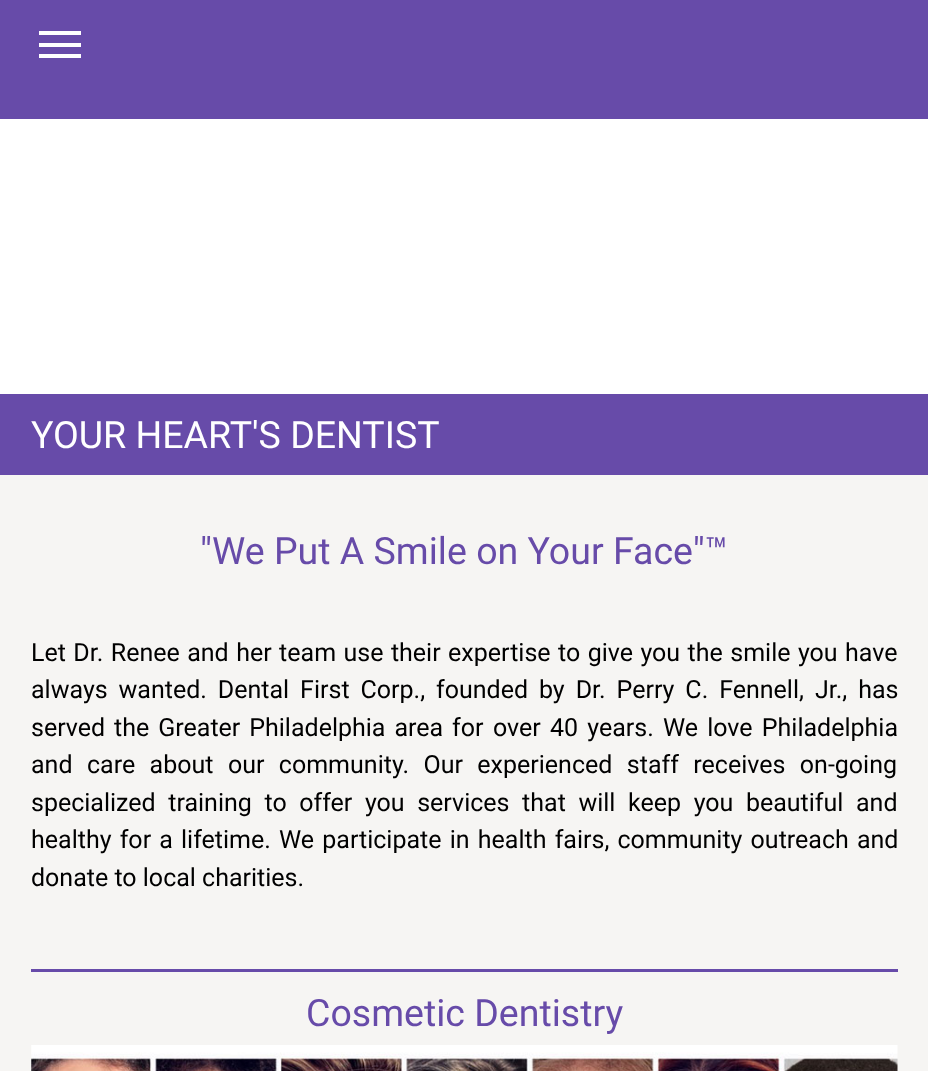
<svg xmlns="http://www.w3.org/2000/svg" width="928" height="1071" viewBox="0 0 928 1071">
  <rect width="100%" height="100%" fill="#ffffff"/>
  <rect x="0" y="0" width="928" height="119" fill="#674ba9"/>
  <rect x="39" y="43" width="42" height="4" fill="#ffffff"/>
  <rect x="39" y="31" width="42" height="4" fill="#ffffff"/>
  <rect x="39" y="54" width="42" height="4" fill="#ffffff"/>
  <rect x="0" y="475" width="928" height="596" fill="#f6f5f3"/>
  <rect x="0" y="394" width="928" height="81" fill="#674ba9"/>
  <text x="31" y="448" font-family="Roboto" font-size="37.5" fill="#ffffff">YOUR HEART'S DENTIST</text>
  <text x="200" y="564" font-family="Roboto" font-size="37.5" fill="#674ba9">"We Put A Smile on Your Face"™</text>
  <text x="31" y="661" word-spacing="1.25" font-family="Roboto" font-size="25" fill="#000000">Let Dr. Renee and her team use their expertise to give you the smile you have</text>
  <text x="31" y="698" word-spacing="4.75" font-family="Roboto" font-size="25" fill="#000000">always wanted. Dental First Corp., founded by Dr. Perry C. Fennell, Jr., has</text>
  <text x="31" y="736" word-spacing="2.75" font-family="Roboto" font-size="25" fill="#000000">served the Greater Philadelphia area for</text>
  <text x="493" y="736" word-spacing="3" font-family="Roboto" font-size="25" fill="#000000">over 40 years. We love Philadelphia</text>
  <text x="31" y="773" word-spacing="8.25" font-family="Roboto" font-size="25" fill="#000000">and care about our community. Our experienced staff receives on-going</text>
  <text x="31" y="811" word-spacing="6.4" font-family="Roboto" font-size="25" fill="#000000">specialized training to offer you services that will keep you beautiful and</text>
  <text x="31" y="848" word-spacing="2" font-family="Roboto" font-size="25" fill="#000000">healthy for a</text>
  <text x="181" y="848" word-spacing="2" font-family="Roboto" font-size="25" fill="#000000">lifetime. We participate in health fairs, community outreach and</text>
  <text x="31" y="886" font-family="Roboto" font-size="25" fill="#000000">donate to local charities.</text>
  <rect x="31" y="969" width="867" height="3" fill="#674ba9"/>
  <text x="306" y="1026" font-family="Roboto" font-size="37.5" fill="#674ba9">Cosmetic Dentistry</text>
  <image x="31" y="1045" width="867" height="26" href="img1.png"/>
</svg>
